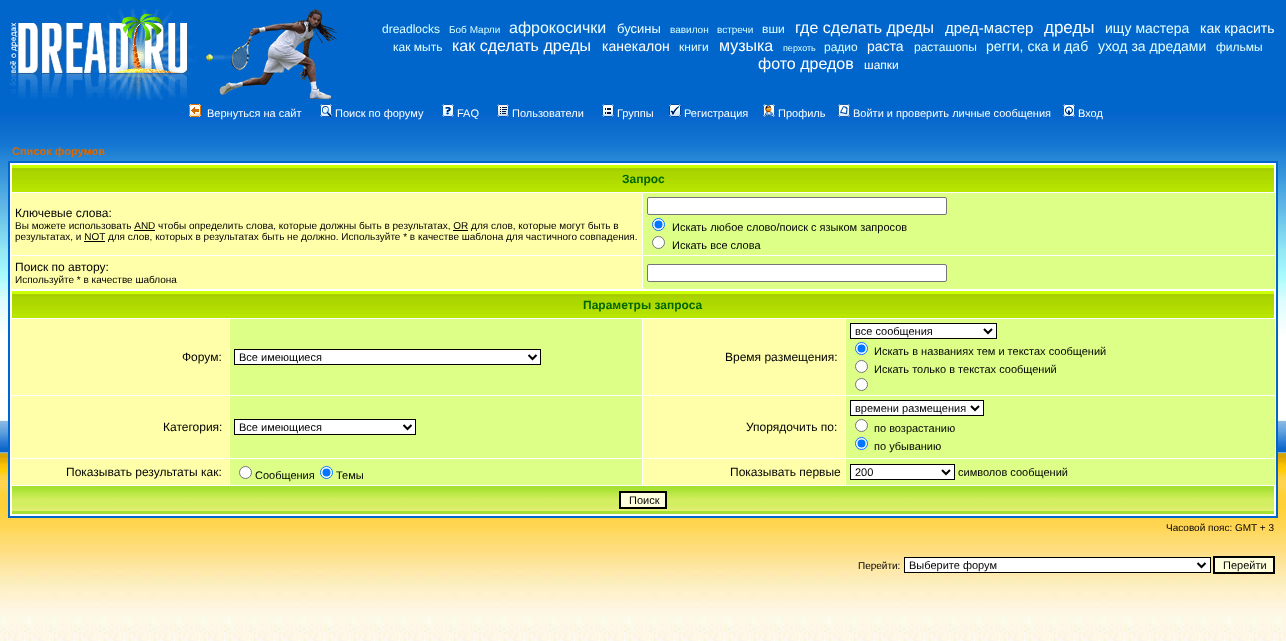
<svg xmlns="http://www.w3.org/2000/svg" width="1286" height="641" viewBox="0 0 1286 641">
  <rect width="100%" height="100%" fill="#0066cc"/>
  <image x="0" y="113" width="1286" height="528" href="img1.png"/>
  <image x="9" y="9" width="329" height="91" href="img2.png"/>
  <text x="382" y="33" font-family="Liberation Sans" font-size="12" fill="#d6ffff">dreadlocks</text>
  <text x="449" y="33" font-family="Liberation Sans" font-size="10" fill="#d6ffff">Боб Марли</text>
  <text x="509" y="33" font-family="Liberation Sans" font-size="16" fill="#ebffff">афрокосички</text>
  <text x="617" y="33" font-family="Liberation Sans" font-size="13" fill="#ebffff">бусины</text>
  <text x="670" y="33" font-family="Liberation Sans" font-size="10" fill="#d6ffff">вавилон</text>
  <text x="717" y="33" font-family="Liberation Sans" font-size="10" fill="#d6ffff">встречи</text>
  <text x="762" y="33" font-family="Liberation Sans" font-size="12" fill="#e0ffff">вши</text>
  <text x="795" y="33" font-family="Liberation Sans" font-size="16" fill="#ffffff">где сделать дреды</text>
  <text x="945" y="33" font-family="Liberation Sans" font-size="15" fill="#f5ffff">дред-мастер</text>
  <text x="1044" y="33" font-family="Liberation Sans" font-size="17" fill="#ffffff">дреды</text>
  <text x="1105" y="33" font-family="Liberation Sans" font-size="14" fill="#e0ffff">ищу мастера</text>
  <text x="1200" y="33" font-family="Liberation Sans" font-size="14" fill="#f5ffff">как красить</text>
  <text x="393" y="51" font-family="Liberation Sans" font-size="12" fill="#e0ffff">как мыть</text>
  <text x="452" y="51" font-family="Liberation Sans" font-size="16" fill="#ffffff">как сделать дреды</text>
  <text x="602" y="51" font-family="Liberation Sans" font-size="14" fill="#ffffff">канекалон</text>
  <text x="679" y="51" font-family="Liberation Sans" font-size="12" fill="#e0ffff">книги</text>
  <text x="719" y="51" font-family="Liberation Sans" font-size="16" fill="#ffffff">музыка</text>
  <text x="783" y="51" font-family="Liberation Sans" font-size="9" fill="#d6ffff">перхоть</text>
  <text x="824" y="51" font-family="Liberation Sans" font-size="12" fill="#d6ffff">радио</text>
  <text x="867" y="51" font-family="Liberation Sans" font-size="14" fill="#ffffff">раста</text>
  <text x="914" y="51" font-family="Liberation Sans" font-size="12" fill="#e0ffff">расташопы</text>
  <text x="986" y="51" font-family="Liberation Sans" font-size="14" fill="#e0ffff">регги, ска и даб</text>
  <text x="1098" y="51" font-family="Liberation Sans" font-size="14" fill="#e0ffff">уход за дредами</text>
  <text x="1216" y="51" font-family="Liberation Sans" font-size="12" fill="#e0ffff">фильмы</text>
  <text x="758" y="69" font-family="Liberation Sans" font-size="16" fill="#ffffff">фото дредов</text>
  <text x="864" y="69" font-family="Liberation Sans" font-size="12" fill="#ffffff">шапки</text>
  <image x="189" y="104" width="12" height="13" href="img3.png"/>
  <text x="207" y="117" font-family="Liberation Sans" font-size="11" fill="#ffffff">Вернуться на сайт</text>
  <image x="320" y="104" width="12" height="13" href="img4.png"/>
  <text x="335" y="117" font-family="Liberation Sans" font-size="11" fill="#ffffff">Поиск по форуму</text>
  <image x="442" y="104" width="12" height="13" href="img5.png"/>
  <text x="457" y="117" font-family="Liberation Sans" font-size="11" fill="#ffffff">FAQ</text>
  <image x="497" y="104" width="12" height="13" href="img6.png"/>
  <text x="512" y="117" font-family="Liberation Sans" font-size="11" fill="#ffffff">Пользователи</text>
  <image x="602" y="104" width="12" height="13" href="img7.png"/>
  <text x="617" y="117" font-family="Liberation Sans" font-size="11" fill="#ffffff">Группы</text>
  <image x="669" y="104" width="12" height="13" href="img8.png"/>
  <text x="684" y="117" font-family="Liberation Sans" font-size="11" fill="#ffffff">Регистрация</text>
  <image x="763" y="104" width="12" height="13" href="img9.png"/>
  <text x="778" y="117" font-family="Liberation Sans" font-size="11" fill="#ffffff">Профиль</text>
  <image x="838" y="104" width="12" height="13" href="img10.png"/>
  <text x="853" y="117" font-family="Liberation Sans" font-size="11" fill="#ffffff">Войти и проверить личные сообщения</text>
  <image x="1063" y="104" width="12" height="13" href="img11.png"/>
  <text x="1078" y="117" font-family="Liberation Sans" font-size="11" fill="#ffffff">Вход</text>
  <text x="12" y="155" font-family="Liberation Sans" font-size="11" font-weight="bold" fill="#dd6900">Список форумов</text>
  <rect x="9" y="162" width="1268" height="355" fill="#ffffff" stroke="#0066cc" stroke-width="2"/>
  <image x="12" y="165" width="1262" height="27" href="img12.png"/>
  <text x="622" y="183" font-family="Liberation Sans" font-size="12" font-weight="bold" fill="#006600">Запрос</text>
  <rect x="11" y="193" width="631" height="62" fill="#ffffaa"/>
  <text x="15" y="217" font-family="Liberation Sans" font-size="12" fill="#000000">Ключевые слова:</text>
  <text x="15" y="229" font-family="Liberation Sans" font-size="10" fill="#000000">Вы можете использовать AND чтобы определить слова, которые должны быть в результатах, OR для слов, которые могут быть в</text>
  <rect x="134" y="230" width="21" height="1" fill="#000000"/>
  <rect x="453" y="230" width="15" height="1" fill="#000000"/>
  <text x="15" y="240" font-family="Liberation Sans" font-size="10" fill="#000000">результатах, и NOT для слов, которых в результатах быть не должно. Используйте * в качестве шаблона для частичного совпадения.</text>
  <rect x="84" y="241" width="21" height="1" fill="#000000"/>
  <rect x="643" y="193" width="632" height="62" fill="#ddff88"/>
  <rect x="647.5" y="197.5" width="299" height="17" rx="1.5" fill="#ffffff" stroke="#767676"/>
  <circle cx="658.5" cy="224.5" r="6" fill="#ffffff" stroke="#0075ff"/>
  <circle cx="658.5" cy="224.5" r="4" fill="#0075ff"/>
  <text x="672" y="231" font-family="Liberation Sans" font-size="11" fill="#000000">Искать любое слово/поиск с языком запросов</text>
  <circle cx="658.5" cy="242.5" r="6" fill="#ffffff" stroke="#767676"/>
  <text x="672" y="249" font-family="Liberation Sans" font-size="11" fill="#000000">Искать все слова</text>
  <rect x="11" y="256" width="631" height="33" fill="#ffffaa"/>
  <text x="15" y="271" font-family="Liberation Sans" font-size="12" fill="#000000">Поиск по автору:</text>
  <text x="15" y="283" font-family="Liberation Sans" font-size="10" fill="#000000">Используйте * в качестве шаблона</text>
  <rect x="643" y="256" width="632" height="33" fill="#ddff88"/>
  <rect x="647.5" y="264.5" width="299" height="17" rx="1.5" fill="#ffffff" stroke="#767676"/>
  <image x="12" y="291" width="1262" height="27" href="img12.png"/>
  <text x="583" y="309" font-family="Liberation Sans" font-size="12" font-weight="bold" fill="#006600">Параметры запроса</text>
  <rect x="11" y="319" width="218" height="76" fill="#ffffaa"/>
  <text x="182" y="361" font-family="Liberation Sans" font-size="12" fill="#000000">Форум:</text>
  <rect x="230" y="319" width="412" height="76" fill="#ddff88"/>
  <rect x="234.5" y="349.5" width="306" height="15" fill="#ffffff" stroke="#000000"/>
  <path d="M528.5 355L532.5 359L536.5 355" fill="none" stroke="#000000" stroke-width="2"/>
  <text x="239" y="361" font-family="Liberation Sans" font-size="11" fill="#000000">Все имеющиеся</text>
  <rect x="643" y="319" width="202" height="76" fill="#ffffaa"/>
  <text x="725" y="361" font-family="Liberation Sans" font-size="12" fill="#000000">Время размещения:</text>
  <rect x="846" y="319" width="429" height="76" fill="#ddff88"/>
  <rect x="850.5" y="323.5" width="146" height="15" fill="#ffffff" stroke="#000000"/>
  <path d="M984 329L988 333L992 329" fill="none" stroke="#000000" stroke-width="2"/>
  <text x="855" y="335" font-family="Liberation Sans" font-size="11" fill="#000000">все сообщения</text>
  <circle cx="861.5" cy="348.5" r="6" fill="#ffffff" stroke="#0075ff"/>
  <circle cx="861.5" cy="348.5" r="4" fill="#0075ff"/>
  <text x="874" y="355" font-family="Liberation Sans" font-size="11" fill="#000000">Искать в названиях тем и текстах сообщений</text>
  <circle cx="861.5" cy="366.5" r="6" fill="#ffffff" stroke="#767676"/>
  <text x="874" y="373" font-family="Liberation Sans" font-size="11" fill="#000000">Искать только в текстах сообщений</text>
  <circle cx="861.5" cy="384.5" r="6" fill="#ffffff" stroke="#767676"/>
  <rect x="11" y="396" width="218" height="62" fill="#ffffaa"/>
  <text x="163" y="431" font-family="Liberation Sans" font-size="12" fill="#000000">Категория:</text>
  <rect x="230" y="396" width="412" height="62" fill="#ddff88"/>
  <rect x="234.5" y="419.5" width="181" height="15" fill="#ffffff" stroke="#000000"/>
  <path d="M403.5 425L407.5 429L411.5 425" fill="none" stroke="#000000" stroke-width="2"/>
  <text x="239" y="431" font-family="Liberation Sans" font-size="11" fill="#000000">Все имеющиеся</text>
  <rect x="643" y="396" width="202" height="62" fill="#ffffaa"/>
  <text x="746" y="431" font-family="Liberation Sans" font-size="12" fill="#000000">Упорядочить по:</text>
  <rect x="846" y="396" width="429" height="62" fill="#ddff88"/>
  <rect x="850.5" y="400.5" width="133" height="15" fill="#ffffff" stroke="#000000"/>
  <path d="M971 406L975 410L979 406" fill="none" stroke="#000000" stroke-width="2"/>
  <text x="855" y="412" font-family="Liberation Sans" font-size="11" fill="#000000">времени размещения</text>
  <circle cx="861.5" cy="425.5" r="6" fill="#ffffff" stroke="#767676"/>
  <text x="874" y="432" font-family="Liberation Sans" font-size="11" fill="#000000">по возрастанию</text>
  <circle cx="861.5" cy="443.5" r="6" fill="#ffffff" stroke="#0075ff"/>
  <circle cx="861.5" cy="443.5" r="4" fill="#0075ff"/>
  <text x="874" y="450" font-family="Liberation Sans" font-size="11" fill="#000000">по убыванию</text>
  <rect x="11" y="459" width="218" height="26" fill="#ffffaa"/>
  <text x="66" y="476" font-family="Liberation Sans" font-size="12" fill="#000000">Показывать результаты как:</text>
  <rect x="230" y="459" width="412" height="26" fill="#ddff88"/>
  <circle cx="245.5" cy="472.5" r="6" fill="#ffffff" stroke="#767676"/>
  <text x="255" y="479" font-family="Liberation Sans" font-size="11" fill="#000000">Сообщения</text>
  <circle cx="326.5" cy="472.5" r="6" fill="#ffffff" stroke="#0075ff"/>
  <circle cx="326.5" cy="472.5" r="4" fill="#0075ff"/>
  <text x="336" y="479" font-family="Liberation Sans" font-size="11" fill="#000000">Темы</text>
  <rect x="643" y="459" width="202" height="26" fill="#ffffaa"/>
  <text x="730" y="476" font-family="Liberation Sans" font-size="12" fill="#000000">Показывать первые</text>
  <rect x="846" y="459" width="429" height="26" fill="#ddff88"/>
  <rect x="850.5" y="464.5" width="104" height="15" fill="#ffffff" stroke="#000000"/>
  <path d="M942 470L946 474L950 470" fill="none" stroke="#000000" stroke-width="2"/>
  <text x="855" y="476" font-family="Liberation Sans" font-size="11" fill="#000000">200</text>
  <text x="958" y="476" font-family="Liberation Sans" font-size="11" fill="#000000">символов сообщений</text>
  <image x="12" y="486" width="1262" height="28" href="img13.png"/>
  <rect x="620" y="492" width="46" height="16" fill="#ffffdd" stroke="#000000" stroke-width="2"/>
  <text x="629" y="504" font-family="Liberation Sans" font-size="11" fill="#000000">Поиск</text>
  <text x="1166" y="531" font-family="Liberation Sans" font-size="10" fill="#000000">Часовой пояс: GMT + 3</text>
  <text x="858" y="569" font-family="Liberation Sans" font-size="10" fill="#000000">Перейти:</text>
  <rect x="904.5" y="557.5" width="306" height="15" fill="#ffffff" stroke="#000000"/>
  <path d="M1197.5 563L1201.5 567L1205.5 563" fill="none" stroke="#000000" stroke-width="2"/>
  <text x="909" y="569" font-family="Liberation Sans" font-size="11" fill="#000000">Выберите форум</text>
  <rect x="1214" y="557" width="60" height="16" fill="#ffffdd" stroke="#000000" stroke-width="2"/>
  <text x="1223" y="569" font-family="Liberation Sans" font-size="11" fill="#000000">Перейти</text>
</svg>
